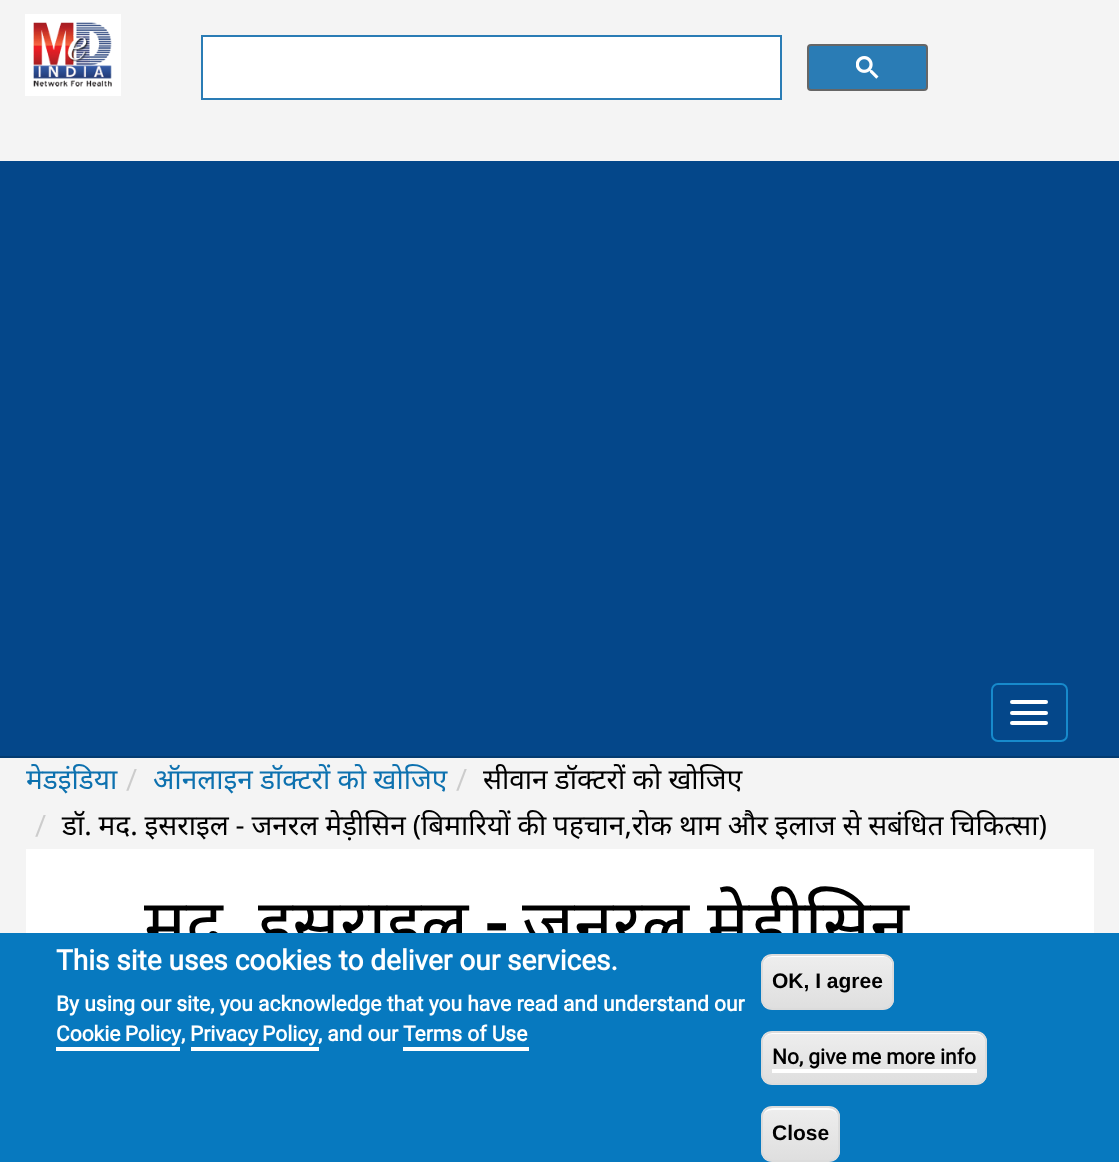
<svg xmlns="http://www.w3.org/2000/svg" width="1119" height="1162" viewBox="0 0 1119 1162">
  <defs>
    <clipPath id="clip1"><rect x="761" y="954" width="133" height="56" rx="11"/></clipPath>
    <linearGradient id="g1" gradientUnits="userSpaceOnUse" x1="763" y1="956" x2="763" y2="1008"><stop offset="0.05" stop-color="#ededed"/><stop offset="1" stop-color="#dfdfdf"/></linearGradient>
    <clipPath id="clip2"><rect x="761" y="1031" width="226" height="54" rx="11"/></clipPath>
    <linearGradient id="g2" gradientUnits="userSpaceOnUse" x1="763" y1="1033" x2="763" y2="1083"><stop offset="0.05" stop-color="#ededed"/><stop offset="1" stop-color="#dfdfdf"/></linearGradient>
    <clipPath id="clip3"><rect x="761" y="1106" width="79" height="56" rx="11"/></clipPath>
    <linearGradient id="g3" gradientUnits="userSpaceOnUse" x1="763" y1="1108" x2="763" y2="1160"><stop offset="0.05" stop-color="#ededed"/><stop offset="1" stop-color="#dfdfdf"/></linearGradient>
  </defs>
  <rect width="100%" height="100%" fill="#f4f4f4"/>
  <rect x="25" y="14" width="96" height="82" fill="#ffffff"/>
  <image x="33" y="22" width="79" height="65" href="img1.png"/>
  <rect x="202" y="36" width="579" height="63" fill="#ffffff" stroke="#2a7cb5" stroke-width="2"/>
  <rect x="808" y="45" width="119" height="45" rx="3" fill="#2a7cb5" stroke="#666666" stroke-width="2"/>
  <image x="856" y="56" width="23" height="23" href="img2.png"/>
  <rect x="0" y="161" width="1119" height="595" fill="#04478a"/>
  <rect x="0" y="756" width="1119" height="2" fill="#033b71"/>
  <rect x="992" y="684" width="75" height="57" rx="6" fill="none" stroke="#178acc" stroke-width="2"/>
  <rect x="1010" y="700" width="38" height="4" rx="2" fill="#ffffff"/>
  <rect x="1010" y="711" width="38" height="4" rx="2" fill="#ffffff"/>
  <rect x="1010" y="721" width="38" height="4" rx="2" fill="#ffffff"/>
  <text x="26" y="789" font-family="Noto Sans" font-size="28" fill="#0d71af">मेडइंडिया</text>
  <text x="126" y="789" font-family="Roboto" font-size="28" fill="#cccccc">/</text>
  <text x="153" y="789" font-family="Noto Sans" font-size="28" fill="#0d71af">ऑनलाइन डॉक्टरों को खोजिए</text>
  <text x="456" y="789" font-family="Roboto" font-size="28" fill="#cccccc">/</text>
  <text x="483" y="789" font-family="Noto Sans" font-size="28" fill="#000000">सीवान डॉक्टरों को खोजिए</text>
  <text x="35" y="835" font-family="Roboto" font-size="28" fill="#cccccc">/</text>
  <text x="62" y="835" word-spacing="-0.4" font-family="Noto Sans" font-size="28" fill="#000000">डॉ. मद. इसराइल - जनरल मेड़ीसिन (बिमारियों की पहचान,रोक थाम और इलाज से सबंधित चिकित्सा)</text>
  <rect x="26" y="849" width="1068" height="84" fill="#ffffff"/>
  <text x="144" y="949" font-family="Noto Sans" font-size="70" fill="#000000">मद</text>
  <text x="258" y="949" font-family="Noto Sans" font-size="70" fill="#000000">इसराइल</text>
  <text x="486" y="949" font-family="Roboto" font-size="70" font-weight="bold" fill="#000000">-</text>
  <text x="522" y="949" font-family="Noto Sans" font-size="70" fill="#000000">जनरल मेड़ीसिन</text>
  <rect x="0" y="933" width="1119" height="229" fill="#0779bf"/>
  <text x="56" y="970" font-family="Roboto" font-size="28" font-weight="bold" fill="#ffffff">This site uses cookies to deliver our services.</text>
  <text x="56" y="1011" font-family="Roboto" font-size="21" font-weight="bold" fill="#ffffff">By using our site, you acknowledge that you have read and understand our</text>
  <text x="56" y="1041" word-spacing="-1" font-family="Roboto" font-size="21" font-weight="bold" fill="#ffffff">Cookie Policy</text>
  <rect x="56" y="1047" width="124" height="4" fill="#ffffff"/>
  <text x="181" y="1041" font-family="Roboto" font-size="21" font-weight="bold" fill="#ffffff">,</text>
  <text x="190" y="1041" word-spacing="-1" font-family="Roboto" font-size="21" font-weight="bold" fill="#ffffff">Privacy Policy</text>
  <rect x="191" y="1047" width="128" height="4" fill="#ffffff"/>
  <text x="318" y="1041" font-family="Roboto" font-size="21" font-weight="bold" fill="#ffffff">, and our</text>
  <text x="403" y="1041" font-family="Roboto" font-size="21" font-weight="bold" fill="#ffffff">Terms of Use</text>
  <rect x="403" y="1047" width="126" height="4" fill="#ffffff"/>
  <g clip-path="url(#clip1)">
    <rect x="761" y="956" width="133" height="52" fill="url(#g1)"/>
  </g>
  <path d="M772 957H884C894 957 892 971 892 978V1004C893 1002 893 1001 893 999V965C893 960 889 956 884 956H772C767 956 763 960 763 965V966C763 961 767 957 772 957Z" fill="#ffffff"/>
  <rect x="762" y="955" width="131" height="54" rx="10" fill="none" stroke="#dcdcdc" stroke-width="2"/>
  <text x="772" y="988" font-family="Liberation Sans" font-size="21" font-weight="bold" fill="#000000">OK, I agree</text>
  <g clip-path="url(#clip2)">
    <rect x="761" y="1033" width="226" height="50" fill="url(#g2)"/>
  </g>
  <path d="M772 1034H976C981 1034 985 1038 985 1043V1042C985 1037 981 1033 976 1033H772C767 1033 763 1037 763 1042V1043C763 1038 767 1034 772 1034Z" fill="#ffffff"/>
  <rect x="762" y="1032" width="224" height="52" rx="10" fill="none" stroke="#dcdcdc" stroke-width="2"/>
  <text x="772" y="1064" font-family="Roboto" font-size="21" font-weight="bold" fill="#000000">No, give me more info</text>
  <rect x="772" y="1069" width="205" height="4" fill="#ffffff"/>
  <g clip-path="url(#clip3)">
    <rect x="761" y="1108" width="79" height="52" fill="url(#g3)"/>
  </g>
  <path d="M772 1110H830C834 1110 838 1113 838 1118C838 1107 828 1108 820 1108H782C773 1108 763 1107 763 1118C763 1113 767 1110 772 1110Z" fill="#ffffff"/>
  <rect x="762" y="1107" width="77" height="54" rx="10" fill="none" stroke="#dcdcdc" stroke-width="2"/>
  <text x="772" y="1140" font-family="Liberation Sans" font-size="21" font-weight="bold" fill="#000000">Close</text>
</svg>
